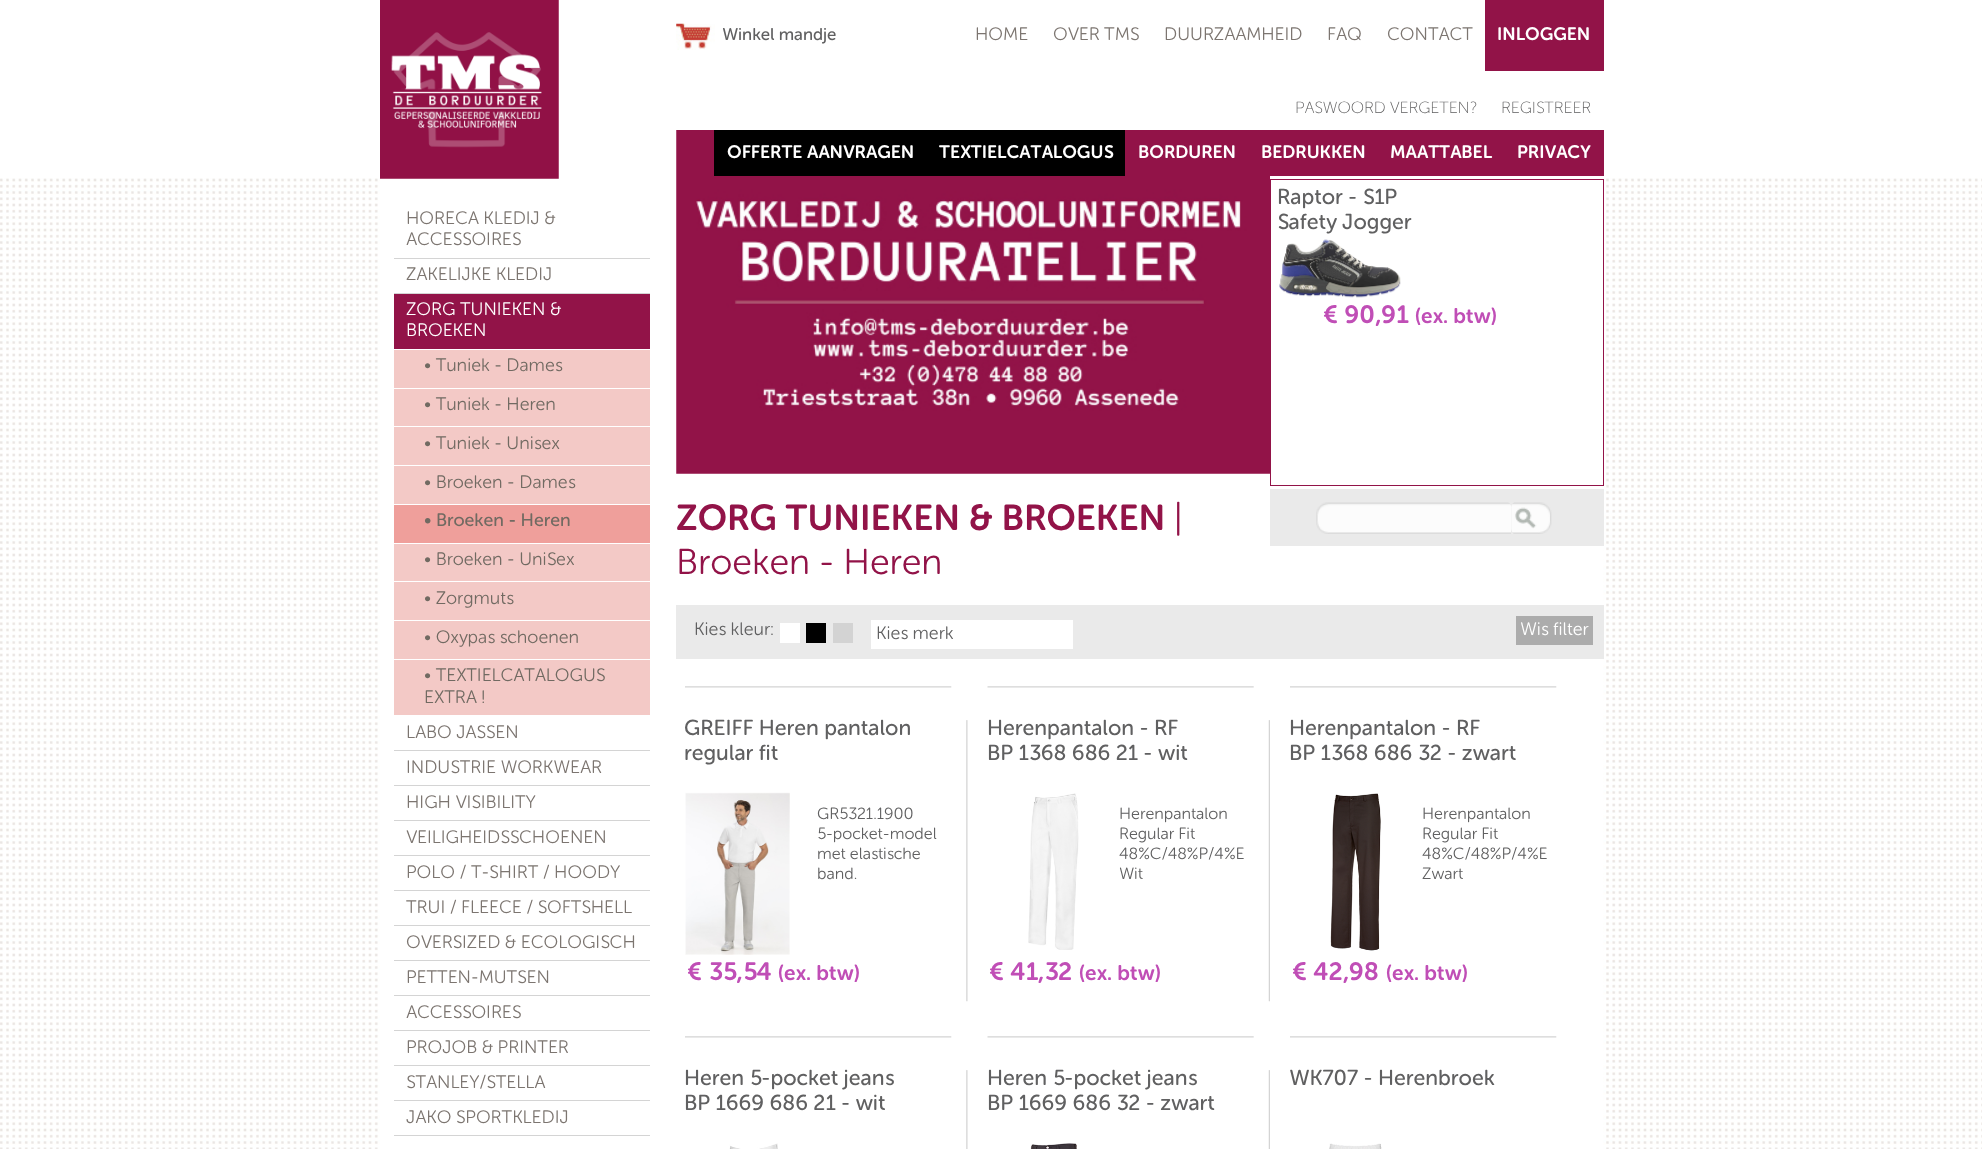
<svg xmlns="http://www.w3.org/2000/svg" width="1982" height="1149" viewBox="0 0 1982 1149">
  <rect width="100%" height="100%" fill="#ffffff"/>
  <image x="0" y="178" width="1982" height="971" href="img1.png"/>
  <rect x="380" y="178" width="1223" height="971" fill="#ffffff"/>
  <image x="380" y="0" width="179" height="179" href="img2.png"/>
  <image x="676" y="23" width="39" height="27" href="img3.png"/>
  <text x="722" y="40" font-family="'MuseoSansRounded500'" font-size="17" fill="#606061">Winkel mandje</text>
  <text x="975" y="40" font-family="'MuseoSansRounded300'" font-size="18" fill="#7c7570">HOME</text>
  <text x="1053" y="40" font-family="'MuseoSansRounded300'" font-size="18" fill="#7c7570">OVER TMS</text>
  <text x="1164" y="40" font-family="'MuseoSansRounded300'" font-size="18" fill="#7c7570">DUURZAAMHEID</text>
  <text x="1327" y="40" font-family="'MuseoSansRounded300'" font-size="18" fill="#7c7570">FAQ</text>
  <text x="1387" y="40" font-family="'MuseoSansRounded300'" font-size="18" fill="#7c7570">CONTACT</text>
  <rect x="1485" y="0" width="119" height="71" fill="#921348"/>
  <text x="1497" y="40" font-family="'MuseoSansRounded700'" font-size="18" fill="#ffffff">INLOGGEN</text>
  <text x="1295" y="113" font-family="'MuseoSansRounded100'" font-size="16.25" fill="#606061">PASWOORD VERGETEN?</text>
  <text x="1501" y="113" font-family="'MuseoSansRounded100'" font-size="16.25" fill="#606061">REGISTREER</text>
  <rect x="394" y="258" width="256" height="1" fill="#d4d4d4"/>
  <text x="406" y="224" font-family="'MuseoSansRounded300'" font-size="18" fill="#7c7570">HORECA KLEDIJ &amp;</text>
  <text x="406" y="245" font-family="'MuseoSansRounded300'" font-size="18" fill="#7c7570">ACCESSOIRES</text>
  <rect x="394" y="293" width="256" height="1" fill="#d4d4d4"/>
  <text x="406" y="280" font-family="'MuseoSansRounded300'" font-size="18" fill="#7c7570">ZAKELIJKE KLEDIJ</text>
  <rect x="394" y="294" width="256" height="55" fill="#921348"/>
  <text x="406" y="315" font-family="'MuseoSansRounded300'" font-size="18" fill="#ffffff">ZORG TUNIEKEN &amp;</text>
  <text x="406" y="336" font-family="'MuseoSansRounded300'" font-size="18" fill="#ffffff">BROEKEN</text>
  <rect x="394" y="350" width="256" height="38" fill="#f3c9c6"/>
  <text x="424" y="371" font-family="'MuseoSansRounded300'" font-size="18" fill="#716a62">• Tuniek - Dames</text>
  <rect x="394" y="389" width="256" height="76" fill="#f3c9c6"/>
  <rect x="394" y="426" width="256" height="1" fill="#ffffff"/>
  <text x="424" y="410" font-family="'MuseoSansRounded300'" font-size="18" fill="#716a62">• Tuniek - Heren</text>
  <text x="424" y="449" font-family="'MuseoSansRounded300'" font-size="18" fill="#716a62">• Tuniek - Unisex</text>
  <rect x="394" y="466" width="256" height="38" fill="#f3c9c6"/>
  <text x="424" y="488" font-family="'MuseoSansRounded300'" font-size="18" fill="#716a62">• Broeken - Dames</text>
  <rect x="394" y="505" width="256" height="38" fill="#ef9f9b"/>
  <text x="424" y="526" font-family="'MuseoSansRounded500'" font-size="18" fill="#716a62">• Broeken - Heren</text>
  <rect x="394" y="544" width="256" height="76" fill="#f3c9c6"/>
  <rect x="394" y="581" width="256" height="1" fill="#ffffff"/>
  <text x="424" y="565" font-family="'MuseoSansRounded300'" font-size="18" fill="#716a62">• Broeken - UniSex</text>
  <text x="424" y="604" font-family="'MuseoSansRounded300'" font-size="18" fill="#716a62">• Zorgmuts</text>
  <rect x="394" y="621" width="256" height="38" fill="#f3c9c6"/>
  <text x="424" y="643" font-family="'MuseoSansRounded300'" font-size="18" fill="#716a62">• Oxypas schoenen</text>
  <rect x="394" y="660" width="256" height="55" fill="#f3c9c6"/>
  <text x="424" y="681" font-family="'MuseoSansRounded300'" font-size="18" fill="#716a62">• TEXTIELCATALOGUS</text>
  <text x="424" y="703" font-family="'MuseoSansRounded300'" font-size="18" fill="#716a62">EXTRA !</text>
  <rect x="394" y="750" width="256" height="1" fill="#d4d4d4"/>
  <text x="406" y="738" font-family="'MuseoSansRounded300'" font-size="18" fill="#7c7570">LABO JASSEN</text>
  <rect x="394" y="785" width="256" height="1" fill="#d4d4d4"/>
  <text x="406" y="773" font-family="'MuseoSansRounded300'" font-size="18" fill="#7c7570">INDUSTRIE WORKWEAR</text>
  <rect x="394" y="820" width="256" height="1" fill="#d4d4d4"/>
  <text x="406" y="808" font-family="'MuseoSansRounded300'" font-size="18" fill="#7c7570">HIGH VISIBILITY</text>
  <rect x="394" y="855" width="256" height="1" fill="#d4d4d4"/>
  <text x="406" y="843" font-family="'MuseoSansRounded300'" font-size="18" fill="#7c7570">VEILIGHEIDSSCHOENEN</text>
  <rect x="394" y="890" width="256" height="1" fill="#d4d4d4"/>
  <text x="406" y="878" font-family="'MuseoSansRounded300'" font-size="18" fill="#7c7570">POLO / T-SHIRT / HOODY</text>
  <rect x="394" y="925" width="256" height="1" fill="#d4d4d4"/>
  <text x="406" y="913" font-family="'MuseoSansRounded300'" font-size="18" fill="#7c7570">TRUI / FLEECE / SOFTSHELL</text>
  <rect x="394" y="960" width="256" height="1" fill="#d4d4d4"/>
  <text x="406" y="948" font-family="'MuseoSansRounded300'" font-size="18" fill="#7c7570">OVERSIZED &amp; ECOLOGISCH</text>
  <rect x="394" y="995" width="256" height="1" fill="#d4d4d4"/>
  <text x="406" y="983" font-family="'MuseoSansRounded300'" font-size="18" fill="#7c7570">PETTEN-MUTSEN</text>
  <rect x="394" y="1030" width="256" height="1" fill="#d4d4d4"/>
  <text x="406" y="1018" font-family="'MuseoSansRounded300'" font-size="18" fill="#7c7570">ACCESSOIRES</text>
  <rect x="394" y="1065" width="256" height="1" fill="#d4d4d4"/>
  <text x="406" y="1053" font-family="'MuseoSansRounded300'" font-size="18" fill="#7c7570">PROJOB &amp; PRINTER</text>
  <rect x="394" y="1100" width="256" height="1" fill="#d4d4d4"/>
  <text x="406" y="1088" font-family="'MuseoSansRounded300'" font-size="18" fill="#7c7570">STANLEY/STELLA</text>
  <rect x="394" y="1135" width="256" height="1" fill="#d4d4d4"/>
  <text x="406" y="1123" font-family="'MuseoSansRounded300'" font-size="18" fill="#7c7570">JAKO SPORTKLEDIJ</text>
  <image x="676" y="130" width="594" height="344" href="img4.png"/>
  <rect x="714" y="130" width="411" height="46" fill="#000000"/>
  <text x="727" y="158" font-family="'MuseoSansRounded700'" font-size="18" fill="#ffffff">OFFERTE AANVRAGEN</text>
  <text x="939" y="158" font-family="'MuseoSansRounded700'" font-size="18" fill="#ffffff">TEXTIELCATALOGUS</text>
  <text x="1138" y="158" font-family="'MuseoSansRounded700'" font-size="18" fill="#ffffff">BORDUREN</text>
  <rect x="1270" y="130" width="334" height="46" fill="#921348"/>
  <text x="1261" y="158" font-family="'MuseoSansRounded700'" font-size="18" fill="#ffffff">BEDRUKKEN</text>
  <text x="1390" y="158" font-family="'MuseoSansRounded700'" font-size="18" fill="#ffffff">MAATTABEL</text>
  <text x="1517" y="158" font-family="'MuseoSansRounded700'" font-size="18" fill="#ffffff">PRIVACY</text>
  <rect x="1270.5" y="179.5" width="333" height="306" fill="none" stroke="#921348"/>
  <text x="1277" y="204" font-family="'MuseoSansRounded500'" font-size="21.6" fill="#606061">Raptor - S1P</text>
  <text x="1277" y="229" font-family="'MuseoSansRounded500'" font-size="21.6" fill="#606061">Safety Jogger</text>
  <image x="1279" y="239" width="122" height="59" href="img5.png"/>
  <text x="1323" y="323" font-family="'MuseoSansRounded700'" font-size="25" fill="#c04eb6">€ 90,91</text>
  <text x="1415" y="323" font-family="'MuseoSansRounded700'" font-size="21" fill="#c04eb6">(ex. btw)</text>
  <text x="676" y="530" font-family="'MuseoSansRounded700'" font-size="36" fill="#921348">ZORG TUNIEKEN &amp; BROEKEN</text>
  <text x="1174" y="530" font-family="'MuseoSansRounded300'" font-size="36" fill="#921348">|</text>
  <text x="676" y="574" font-family="'MuseoSansRounded300'" font-size="36" fill="#921348">Broeken - Heren</text>
  <rect x="1270" y="489" width="334" height="57" fill="#eaeaea"/>
  <image x="1316" y="502" width="195" height="32" href="img6.png"/>
  <image x="1511" y="502" width="41" height="32" href="img7.png"/>
  <rect x="676" y="605" width="928" height="54" fill="#eaeaea"/>
  <text x="694" y="635" font-family="'MuseoSansRounded300'" font-size="18" fill="#606061">Kies kleur:</text>
  <rect x="780" y="623" width="20" height="20" fill="#ffffff"/>
  <rect x="806" y="623" width="20" height="20" fill="#000000"/>
  <rect x="833" y="623" width="20" height="20" fill="#d3d3d3"/>
  <rect x="871" y="620" width="202" height="29" fill="#ffffff"/>
  <text x="876" y="639" font-family="'MuseoSansRounded300'" font-size="18" fill="#606061">Kies merk</text>
  <rect x="1516" y="616" width="77" height="29" fill="#acacac"/>
  <text x="1520" y="635" font-family="'MuseoSansRounded300'" font-size="18" fill="#ffffff">Wis filter</text>
  <image x="685" y="686" width="267" height="2" href="img8.png"/>
  <image x="966" y="720" width="2" height="282" href="img9.png"/>
  <text x="684" y="735" font-family="'MuseoSansRounded500'" font-size="21.6" fill="#606061">GREIFF Heren pantalon</text>
  <text x="684" y="760" font-family="'MuseoSansRounded500'" font-size="21.6" fill="#606061">regular fit</text>
  <text x="817" y="819" font-family="'MuseoSansRounded300'" font-size="16.25" fill="#606061">GR5321.1900</text>
  <text x="817" y="839" font-family="'MuseoSansRounded300'" font-size="16.25" fill="#606061">5-pocket-model</text>
  <text x="817" y="859" font-family="'MuseoSansRounded300'" font-size="16.25" fill="#606061">met elastische</text>
  <text x="817" y="879" font-family="'MuseoSansRounded300'" font-size="16.25" fill="#606061">band.</text>
  <image x="685" y="792" width="105" height="163" href="img10.png"/>
  <text x="687" y="980" font-family="'MuseoSansRounded700'" font-size="25" fill="#c04eb6">€ 35,54</text>
  <text x="778" y="980" font-family="'MuseoSansRounded700'" font-size="21" fill="#c04eb6">(ex. btw)</text>
  <image x="987" y="686" width="267" height="2" href="img11.png"/>
  <image x="1268" y="720" width="2" height="282" href="img12.png"/>
  <text x="987" y="735" font-family="'MuseoSansRounded500'" font-size="21.6" fill="#606061">Herenpantalon - RF</text>
  <text x="987" y="760" font-family="'MuseoSansRounded500'" font-size="21.6" fill="#606061">BP 1368 686 21 - wit</text>
  <text x="1119" y="819" font-family="'MuseoSansRounded300'" font-size="16.25" fill="#606061">Herenpantalon</text>
  <text x="1119" y="839" font-family="'MuseoSansRounded300'" font-size="16.25" fill="#606061">Regular Fit</text>
  <text x="1119" y="859" font-family="'MuseoSansRounded300'" font-size="16.25" fill="#606061">48%C/48%P/4%E</text>
  <text x="1119" y="879" font-family="'MuseoSansRounded300'" font-size="16.25" fill="#606061">Wit</text>
  <image x="1028" y="793" width="51" height="157" href="img13.png"/>
  <text x="989" y="980" font-family="'MuseoSansRounded700'" font-size="25" fill="#c04eb6">€ 41,32</text>
  <text x="1079" y="980" font-family="'MuseoSansRounded700'" font-size="21" fill="#c04eb6">(ex. btw)</text>
  <image x="1290" y="686" width="267" height="2" href="img8.png"/>
  <text x="1289" y="735" font-family="'MuseoSansRounded500'" font-size="21.6" fill="#606061">Herenpantalon - RF</text>
  <text x="1289" y="760" font-family="'MuseoSansRounded500'" font-size="21.6" fill="#606061">BP 1368 686 32 - zwart</text>
  <text x="1422" y="819" font-family="'MuseoSansRounded300'" font-size="16.25" fill="#606061">Herenpantalon</text>
  <text x="1422" y="839" font-family="'MuseoSansRounded300'" font-size="16.25" fill="#606061">Regular Fit</text>
  <text x="1422" y="859" font-family="'MuseoSansRounded300'" font-size="16.25" fill="#606061">48%C/48%P/4%E</text>
  <text x="1422" y="879" font-family="'MuseoSansRounded300'" font-size="16.25" fill="#606061">Zwart</text>
  <image x="1330" y="793" width="51" height="158" href="img14.png"/>
  <text x="1292" y="980" font-family="'MuseoSansRounded700'" font-size="25" fill="#c04eb6">€ 42,98</text>
  <text x="1386" y="980" font-family="'MuseoSansRounded700'" font-size="21" fill="#c04eb6">(ex. btw)</text>
  <image x="685" y="1036" width="267" height="2" href="img8.png"/>
  <image x="966" y="1070" width="2" height="79" href="img15.png"/>
  <text x="684" y="1085" font-family="'MuseoSansRounded500'" font-size="21.6" fill="#606061">Heren 5-pocket jeans</text>
  <text x="684" y="1110" font-family="'MuseoSansRounded500'" font-size="21.6" fill="#606061">BP 1669 686 21 - wit</text>
  <image x="729" y="1143" width="49" height="6" href="img16.png"/>
  <image x="987" y="1036" width="267" height="2" href="img11.png"/>
  <image x="1268" y="1070" width="2" height="79" href="img17.png"/>
  <text x="987" y="1085" font-family="'MuseoSansRounded500'" font-size="21.6" fill="#606061">Heren 5-pocket jeans</text>
  <text x="987" y="1110" font-family="'MuseoSansRounded500'" font-size="21.6" fill="#606061">BP 1669 686 32 - zwart</text>
  <image x="1030" y="1143" width="47" height="6" href="img18.png"/>
  <image x="1290" y="1036" width="267" height="2" href="img8.png"/>
  <text x="1289" y="1085" font-family="'MuseoSansRounded500'" font-size="21.6" fill="#606061">WK707 - Herenbroek</text>
  <image x="1329" y="1143" width="53" height="6" href="img19.png"/>
</svg>
